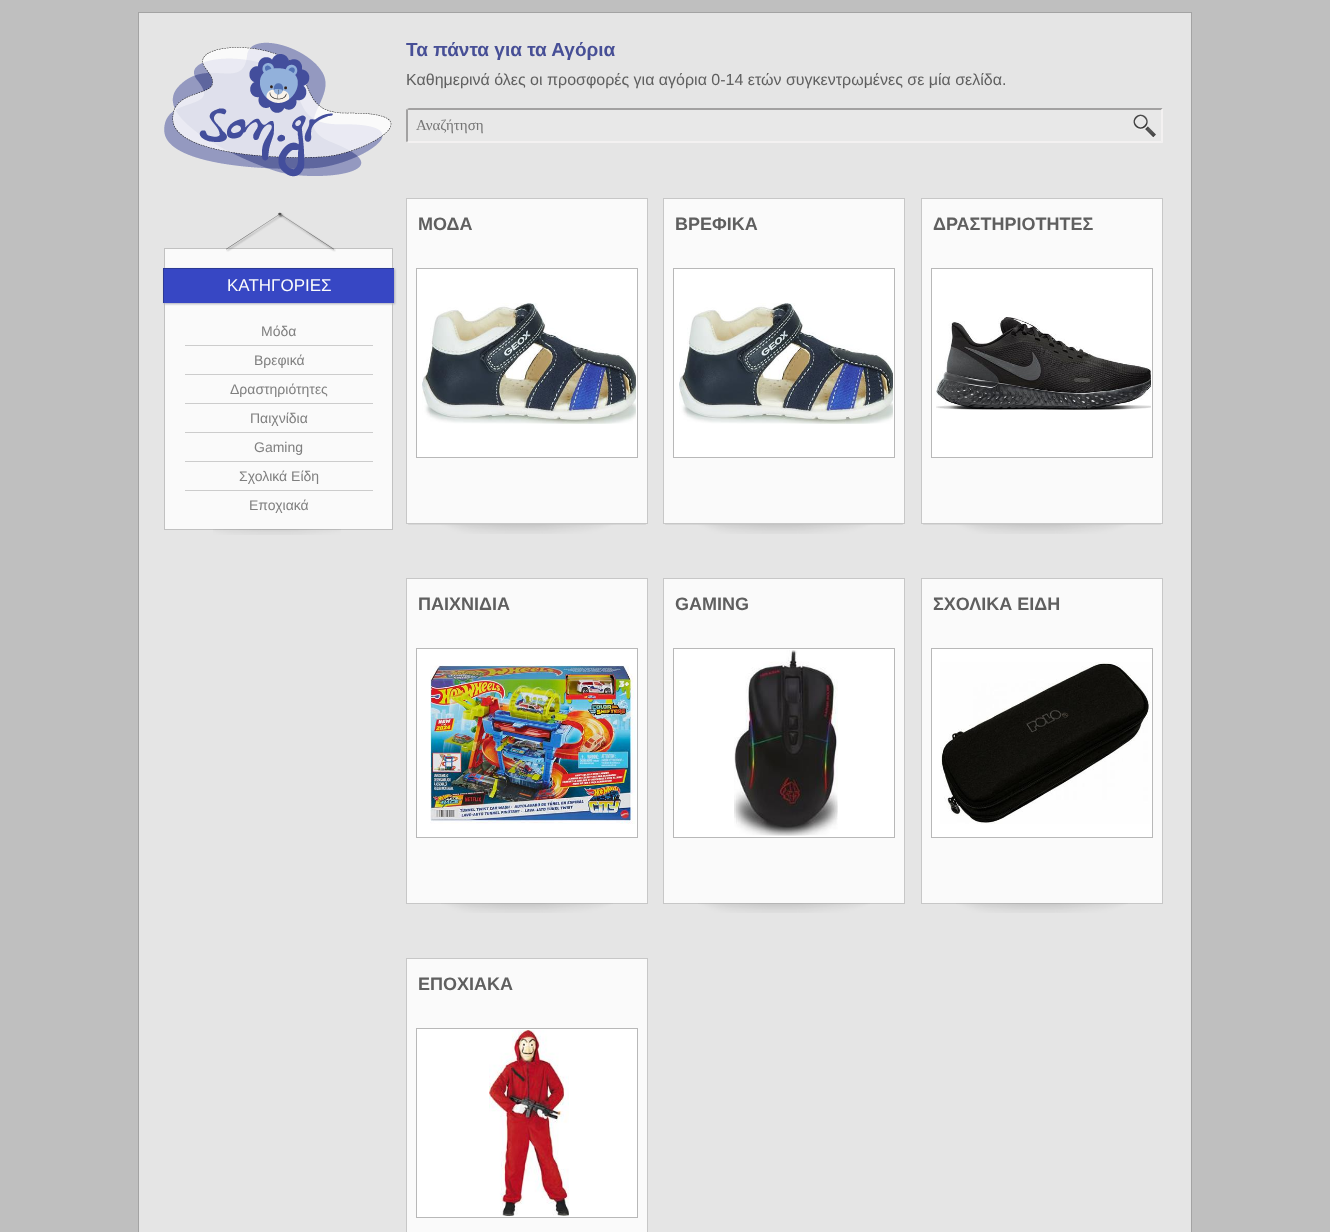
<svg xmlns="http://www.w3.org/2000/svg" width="1330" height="1232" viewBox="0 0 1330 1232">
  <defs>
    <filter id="blur1" x="-50%" y="-200%" width="200%" height="500%"><feGaussianBlur stdDeviation="1"/></filter>
  </defs>
  <rect width="100%" height="100%" fill="#bfbfbf"/>
  <rect x="138.5" y="12.5" width="1053" height="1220" fill="#e5e5e5" stroke="#a3a3a3"/>
  <image x="164" y="42" width="228" height="135" href="img1.png"/>
  <rect x="164.5" y="248.5" width="228" height="281" fill="#fafafa" stroke="#c1c1c1"/>
  <rect x="164" y="269" width="231" height="35" fill="#a9abb8" filter="url(#blur1)"/>
  <rect x="164" y="269" width="230" height="34" fill="#3747c4"/>
  <rect x="163" y="268" width="231" height="1" fill="#2b3994"/>
  <rect x="163" y="268" width="1" height="35" fill="#2b3994"/>
  <image x="226" y="212" width="110" height="40" href="img2.png"/>
  <text x="227" y="291" font-family="Liberation Sans" font-size="17" fill="#fbfbfb">ΚΑΤΗΓΟΡΙΕΣ</text>
  <text x="261" y="336" font-family="Liberation Sans" font-size="14" fill="#7f7f7f">Μόδα</text>
  <rect x="185" y="345" width="188" height="1" fill="#cccccc"/>
  <text x="254" y="365" font-family="Liberation Sans" font-size="14" fill="#7f7f7f">Βρεφικά</text>
  <rect x="185" y="374" width="188" height="1" fill="#cccccc"/>
  <text x="230" y="394" font-family="Liberation Sans" font-size="14" fill="#7f7f7f">Δραστηριότητες</text>
  <rect x="185" y="403" width="188" height="1" fill="#cccccc"/>
  <text x="250" y="423" font-family="Liberation Sans" font-size="14" fill="#7f7f7f">Παιχνίδια</text>
  <rect x="185" y="432" width="188" height="1" fill="#cccccc"/>
  <text x="254" y="452" font-family="Liberation Sans" font-size="14" fill="#7f7f7f">Gaming</text>
  <rect x="185" y="461" width="188" height="1" fill="#cccccc"/>
  <text x="239" y="481" font-family="Liberation Sans" font-size="14" fill="#7f7f7f">Σχολικά Είδη</text>
  <rect x="185" y="490" width="188" height="1" fill="#cccccc"/>
  <text x="249" y="510" font-family="Liberation Sans" font-size="14" fill="#7f7f7f">Εποχιακά</text>
  <image x="213" y="529" width="128" height="6" href="img3.png"/>
  <text x="406" y="56" font-family="Liberation Sans" font-size="19" font-weight="bold" fill="#474f96">Τα πάντα για τα Αγόρια</text>
  <text x="406" y="85" font-family="Liberation Sans" font-size="16" fill="#5f5f5f">Καθημερινά όλες οι προσφορές για αγόρια 0-14 ετών συγκεντρωμένες σε μία σελίδα.</text>
  <path d="M409 108H1163V143H409C407.5 143 406 141.5 406 140V111C406 109.5 407.5 108 409 108Z" fill="#e8e8e8"/>
  <path d="M409 108L407 109L408 110H1161L1163 108Z" fill="#a2a1a1"/>
  <path d="M1163 108L1161 110V141L1163 143Z" fill="#f3f1f1"/>
  <path d="M1163 143L1161 141H408L407 142L409 143Z" fill="#f3f1f1"/>
  <path d="M406 111V140C406 141 406 142 407 142L408 141V110L407 109C406 109 406 110 406 111Z" fill="#a2a1a1"/>
  <text x="416" y="130" font-family="Liberation Serif" font-size="15" fill="#757575">Αναζήτηση</text>
  <image x="1133" y="114" width="23" height="24" href="img4.png"/>
  <rect x="406.5" y="198.5" width="241" height="325" fill="#fafafa" stroke="#c7c7c7"/>
  <text x="418" y="230" font-family="Liberation Sans" font-size="18" font-weight="bold" fill="#5f5f5f">ΜΟΔΑ</text>
  <rect x="416.5" y="268.5" width="221" height="189" fill="#ffffff" stroke="#b8b8b8"/>
  <image x="422" y="303" width="214" height="121" href="img5.png"/>
  <image x="408" y="524" width="238" height="10" href="img6.png"/>
  <rect x="663.5" y="198.5" width="241" height="325" fill="#fafafa" stroke="#c7c7c7"/>
  <text x="675" y="230" font-family="Liberation Sans" font-size="18" font-weight="bold" fill="#5f5f5f">ΒΡΕΦΙΚΑ</text>
  <rect x="673.5" y="268.5" width="221" height="189" fill="#ffffff" stroke="#b8b8b8"/>
  <image x="679" y="303" width="214" height="121" href="img7.png"/>
  <image x="665" y="524" width="238" height="10" href="img6.png"/>
  <rect x="921.5" y="198.5" width="241" height="325" fill="#fafafa" stroke="#c7c7c7"/>
  <text x="933" y="230" font-family="Liberation Sans" font-size="18" font-weight="bold" fill="#5f5f5f">ΔΡΑΣΤΗΡΙΟΤΗΤΕΣ</text>
  <rect x="931.5" y="268.5" width="221" height="189" fill="#ffffff" stroke="#b8b8b8"/>
  <image x="936" y="317" width="215" height="93" href="img8.png"/>
  <image x="923" y="524" width="238" height="10" href="img6.png"/>
  <rect x="406.5" y="578.5" width="241" height="325" fill="#fafafa" stroke="#c7c7c7"/>
  <text x="418" y="610" font-family="Liberation Sans" font-size="18" font-weight="bold" fill="#5f5f5f">ΠΑΙΧΝΙΔΙΑ</text>
  <rect x="416.5" y="648.5" width="221" height="189" fill="#ffffff" stroke="#b8b8b8"/>
  <image x="430" y="665" width="206" height="159" href="img9.png"/>
  <image x="441" y="903" width="172" height="10" href="img10.png"/>
  <rect x="663.5" y="578.5" width="241" height="325" fill="#fafafa" stroke="#c7c7c7"/>
  <text x="675" y="610" font-family="Liberation Sans" font-size="18" font-weight="bold" fill="#5f5f5f">GAMING</text>
  <rect x="673.5" y="648.5" width="221" height="189" fill="#ffffff" stroke="#b8b8b8"/>
  <image x="734" y="650" width="104" height="186" href="img11.png"/>
  <image x="698" y="903" width="172" height="10" href="img10.png"/>
  <rect x="921.5" y="578.5" width="241" height="325" fill="#fafafa" stroke="#c7c7c7"/>
  <text x="933" y="610" font-family="Liberation Sans" font-size="18" font-weight="bold" fill="#5f5f5f">ΣΧΟΛΙΚΑ ΕΙΔΗ</text>
  <rect x="931.5" y="648.5" width="221" height="189" fill="#ffffff" stroke="#b8b8b8"/>
  <image x="940" y="662" width="211" height="162" href="img12.png"/>
  <image x="956" y="903" width="172" height="10" href="img10.png"/>
  <rect x="406.5" y="958.5" width="241" height="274" fill="#fafafa" stroke="#c7c7c7"/>
  <text x="418" y="990" font-family="Liberation Sans" font-size="18" font-weight="bold" fill="#5f5f5f">ΕΠΟΧΙΑΚΑ</text>
  <rect x="416.5" y="1028.5" width="221" height="189" fill="#ffffff" stroke="#b8b8b8"/>
  <image x="489" y="1030" width="80" height="186" href="img13.png"/>
</svg>
